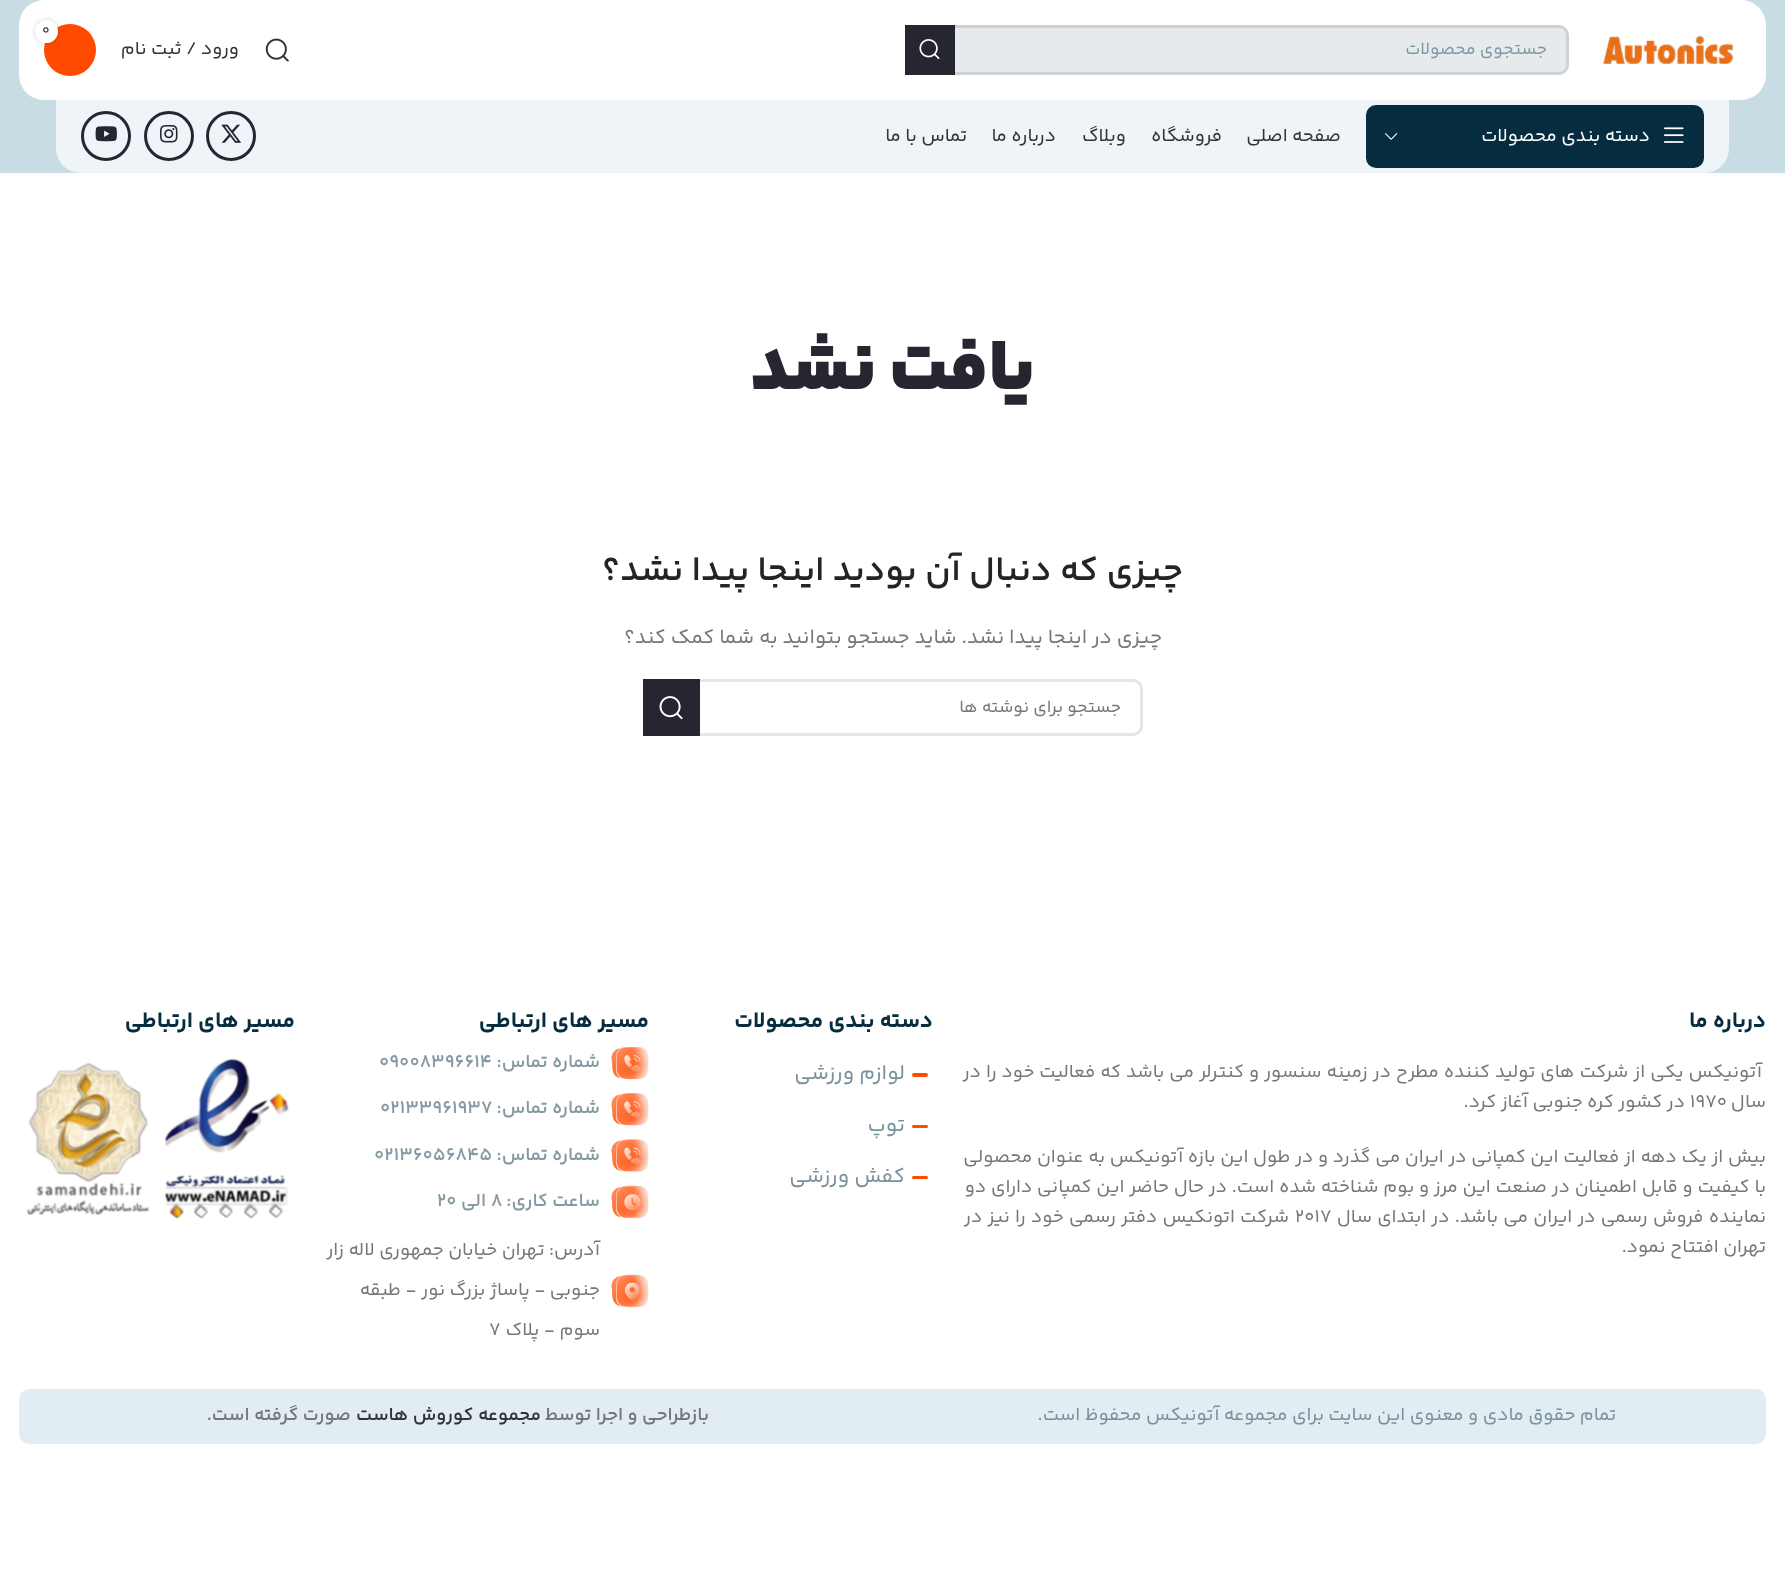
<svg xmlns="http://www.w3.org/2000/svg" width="1785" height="1576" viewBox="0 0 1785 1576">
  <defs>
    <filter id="blur1" x="-50%" y="-200%" width="200%" height="500%"><feGaussianBlur stdDeviation="2.5"/></filter>
  </defs>
  <rect width="100%" height="100%" fill="#ffffff"/>
  <rect x="0" y="0" width="1785" height="173" fill="#c8dce3"/>
  <rect x="19" y="0" width="1747" height="100" rx="25" fill="#ffffff"/>
  <image x="1602" y="35" width="131" height="29" href="img1.png"/>
  <rect x="905" y="25" width="664" height="50" rx="10" fill="#e6eaec"/>
  <rect x="906.5" y="26.5" width="661" height="47" rx="8.5" fill="none" stroke="#000000" stroke-opacity="0.1" stroke-width="3"/>
  <text x="1547" y="54" font-family="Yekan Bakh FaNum" font-size="17.5" direction="rtl" fill="#7e98a4">جستجوی محصولات</text>
  <rect x="905" y="25" width="50" height="50" fill="#262631"/>
  <image x="919" y="39" width="21" height="21" href="img2.png"/>
  <circle cx="70" cy="50" r="26" fill="#ff4b00"/>
  <rect x="35" y="20" width="23" height="23" rx="11.5" fill="#000000" fill-opacity="0.17" filter="url(#blur1)"/>
  <circle cx="46.5" cy="31.5" r="11.5" fill="#ffffff"/>
  <text x="42" y="34" font-family="Yekan Bakh FaNum" font-size="14" fill="#262631">0</text>
  <image x="265" y="38" width="24" height="24" href="img3.png"/>
  <text x="239" y="54" font-family="Yekan Bakh FaNum" font-size="18.75" direction="rtl" fill="#333333">ورود / ثبت نام</text>
  <path d="M56 100H1729V148C1729 162 1718 173 1704 173H81C67 173 56 162 56 148Z" fill="#eef4f7"/>
  <rect x="1366" y="105" width="338" height="63" rx="10" fill="#062d3f"/>
  <image x="1663" y="127" width="21" height="16" href="img4.png"/>
  <text x="1650" y="141" font-family="Yekan Bakh FaNum" font-size="18.75" direction="rtl" fill="#ffffff">دسته بندی محصولات</text>
  <image x="1385" y="133" width="13" height="7" href="img5.png"/>
  <text x="1341" y="141" font-family="Yekan Bakh FaNum" font-size="18.75" direction="rtl" fill="#333333">صفحه اصلی</text>
  <text x="1222" y="141" font-family="Yekan Bakh FaNum" font-size="18.75" direction="rtl" fill="#333333">فروشگاه</text>
  <text x="1126" y="141" font-family="Yekan Bakh FaNum" font-size="18.75" direction="rtl" fill="#333333">وبلاگ</text>
  <text x="1056" y="141" font-family="Yekan Bakh FaNum" font-size="18.75" direction="rtl" fill="#333333">درباره ما</text>
  <text x="967" y="141" font-family="Yekan Bakh FaNum" font-size="18.75" direction="rtl" fill="#333333">تماس با ما</text>
  <circle cx="231" cy="136" r="23.5" fill="none" stroke="#262631" stroke-width="3"/>
  <image x="221" y="124" width="21" height="19" href="img6.png"/>
  <circle cx="169" cy="136" r="23.5" fill="none" stroke="#262631" stroke-width="3"/>
  <image x="160" y="125" width="18" height="18" href="img7.png"/>
  <circle cx="106" cy="136" r="23.5" fill="none" stroke="#262631" stroke-width="3"/>
  <image x="95" y="126" width="22" height="16" href="img8.png"/>
  <text x="1035" y="389" font-family="Yekan Bakh FaNum" font-size="75" font-weight="900" direction="rtl" fill="#262631">یافت نشد</text>
  <text x="1183" y="580" font-family="Yekan Bakh FaNum" font-size="35" font-weight="600" direction="rtl" fill="#242424">چیزی که دنبال آن بودید اینجا پیدا نشد؟</text>
  <text x="1162" y="643" font-family="Yekan Bakh FaNum" font-size="20.6" direction="rtl" fill="#777777">چیزی در اینجا پیدا نشد. شاید جستجو بتوانید به شما کمک کند؟</text>
  <rect x="644.5" y="680.5" width="497" height="54" rx="8.5" fill="none" stroke="#e6e6e6" stroke-width="3"/>
  <text x="1121" y="712" font-family="Yekan Bakh FaNum" font-size="17.5" direction="rtl" fill="#777777">جستجو برای نوشته ها</text>
  <rect x="643" y="679" width="57" height="57" fill="#262631"/>
  <image x="659" y="696" width="24" height="24" href="img9.png"/>
  <text x="1766" y="1027" font-family="Yekan Bakh FaNum" font-size="22.5" font-weight="bold" direction="rtl" fill="#062d3f">درباره ما</text>
  <text x="1762" y="1077" word-spacing="0.5" font-family="Yekan Bakh FaNum" font-size="18.75" direction="rtl" fill="#777777">آتونیکس یکی از شرکت های تولید کننده مطرح در زمینه سنسور و کنترلر می باشد که فعالیت خود را در</text>
  <text x="1766" y="1107" font-family="Yekan Bakh FaNum" font-size="18.75" direction="rtl" fill="#777777">سال</text>
  <text x="1690" y="1107" font-family="Yekan Bakh FaNum" font-size="18.75" fill="#777777">1970</text>
  <text x="1685" y="1107" font-family="Yekan Bakh FaNum" font-size="18.75" direction="rtl" fill="#777777">در کشور کره جنوبی آغاز کرد.</text>
  <text x="1766" y="1162" word-spacing="0.2" font-family="Yekan Bakh FaNum" font-size="18.75" direction="rtl" fill="#777777">بیش از یک دهه از فعالیت این کمپانی در ایران می گذرد و در طول این بازه آتونیکس به عنوان محصولی</text>
  <text x="1766" y="1192" word-spacing="0.3" font-family="Yekan Bakh FaNum" font-size="18.75" direction="rtl" fill="#777777">با کیفیت و قابل اطمینان در صنعت این مرز و بوم شناخته شده است. در حال حاضر این کمپانی دارای دو</text>
  <text x="1766" y="1222" word-spacing="0.75" font-family="Yekan Bakh FaNum" font-size="18.75" direction="rtl" fill="#777777">نماینده فروش رسمی در ایران می باشد. در ابتدای سال</text>
  <text x="1295" y="1222" font-family="Yekan Bakh FaNum" font-size="18.75" fill="#777777">2017</text>
  <text x="1289" y="1222" word-spacing="0.75" font-family="Yekan Bakh FaNum" font-size="18.75" direction="rtl" fill="#777777">شرکت اتونکیس دفتر رسمی خود را نیز در</text>
  <text x="1766" y="1252" font-family="Yekan Bakh FaNum" font-size="18.75" direction="rtl" fill="#777777">تهران افتتاح نمود.</text>
  <text x="933" y="1027" font-family="Yekan Bakh FaNum" font-size="22.5" font-weight="bold" direction="rtl" fill="#062d3f">دسته بندی محصولات</text>
  <rect x="912" y="1073" width="16" height="4" rx="2" fill="#ff4b00"/>
  <text x="905" y="1079" font-family="Yekan Bakh FaNum" font-size="21.25" direction="rtl" fill="#79919a">لوازم ورزشی</text>
  <rect x="912" y="1125" width="16" height="3" rx="1.5" fill="#ff4b00"/>
  <text x="905" y="1131" font-family="Yekan Bakh FaNum" font-size="21.25" direction="rtl" fill="#79919a">توپ</text>
  <rect x="912" y="1176" width="16" height="3" rx="1.5" fill="#ff4b00"/>
  <text x="905" y="1182" font-family="Yekan Bakh FaNum" font-size="21.25" direction="rtl" fill="#79919a">کفش ورزشی</text>
  <text x="649" y="1027" font-family="Yekan Bakh FaNum" font-size="22.5" font-weight="bold" direction="rtl" fill="#062d3f">مسیر های ارتباطی</text>
  <image x="611" y="1047" width="38" height="33" href="img10.png"/>
  <text x="600" y="1067" font-family="Yekan Bakh FaNum" font-size="18.75" font-weight="600" direction="rtl" fill="#8499a1">شماره تماس:</text>
  <text x="379" y="1067" font-family="Yekan Bakh FaNum" font-size="18.75" font-weight="600" fill="#8499a1">09008396614</text>
  <image x="611" y="1093" width="38" height="34" href="img11.png"/>
  <text x="600" y="1113" font-family="Yekan Bakh FaNum" font-size="18.75" font-weight="600" direction="rtl" fill="#8499a1">شماره تماس:</text>
  <text x="380" y="1113" font-family="Yekan Bakh FaNum" font-size="18.75" font-weight="600" fill="#8499a1">02133961937</text>
  <image x="611" y="1139" width="38" height="34" href="img12.png"/>
  <text x="600" y="1160" font-family="Yekan Bakh FaNum" font-size="18.75" font-weight="600" direction="rtl" fill="#8499a1">شماره تماس:</text>
  <text x="374" y="1160" font-family="Yekan Bakh FaNum" font-size="18.75" font-weight="600" fill="#8499a1">02136056845</text>
  <image x="611" y="1185" width="38" height="34" href="img13.png"/>
  <text x="600" y="1206" font-family="Yekan Bakh FaNum" font-size="18.75" font-weight="600" direction="rtl" fill="#8499a1">ساعت کاری:</text>
  <text x="491" y="1206" font-family="Yekan Bakh FaNum" font-size="18.75" font-weight="600" fill="#8499a1">8</text>
  <text x="486" y="1206" font-family="Yekan Bakh FaNum" font-size="18.75" font-weight="600" direction="rtl" fill="#8499a1">الی</text>
  <text x="437" y="1206" font-family="Yekan Bakh FaNum" font-size="18.75" font-weight="600" fill="#8499a1">20</text>
  <image x="611" y="1274" width="38" height="34" href="img14.png"/>
  <text x="600" y="1255" font-family="Yekan Bakh FaNum" font-size="18.75" direction="rtl" fill="#777777">آدرس: تهران خیابان جمهوری لاله زار</text>
  <text x="600" y="1295" font-family="Yekan Bakh FaNum" font-size="18.75" direction="rtl" fill="#777777">جنوبی - پاساژ بزرگ نور - طبقه</text>
  <text x="600" y="1335" font-family="Yekan Bakh FaNum" font-size="18.75" direction="rtl" fill="#777777">سوم - پلاک</text>
  <text x="489" y="1335" font-family="Yekan Bakh FaNum" font-size="18.75" fill="#777777">7</text>
  <text x="295" y="1027" font-family="Yekan Bakh FaNum" font-size="22.5" font-weight="bold" direction="rtl" fill="#062d3f">مسیر های ارتباطی</text>
  <image x="164" y="1058" width="125" height="161" href="img15.png"/>
  <image x="26" y="1062" width="124" height="153" href="img16.png"/>
  <rect x="19" y="1389" width="1747" height="55" rx="10" fill="#e2edf3"/>
  <text x="1616" y="1420" font-family="Yekan Bakh FaNum" font-size="18.75" direction="rtl" fill="#79919a">تمام حقوق مادی و معنوی این سایت برای مجموعه آتونیکس محفوظ است.</text>
  <text x="709" y="1420" font-family="Yekan Bakh FaNum" font-size="18.75" font-weight="600" direction="rtl" fill="#777777">بازطراحی و اجرا توسط</text>
  <text x="541" y="1420" font-family="Yekan Bakh FaNum" font-size="18.75" font-weight="600" direction="rtl" fill="#333333">مجموعه کوروش هاست</text>
  <text x="351" y="1420" font-family="Yekan Bakh FaNum" font-size="18.75" font-weight="600" direction="rtl" fill="#777777">صورت گرفته است.</text>
</svg>
